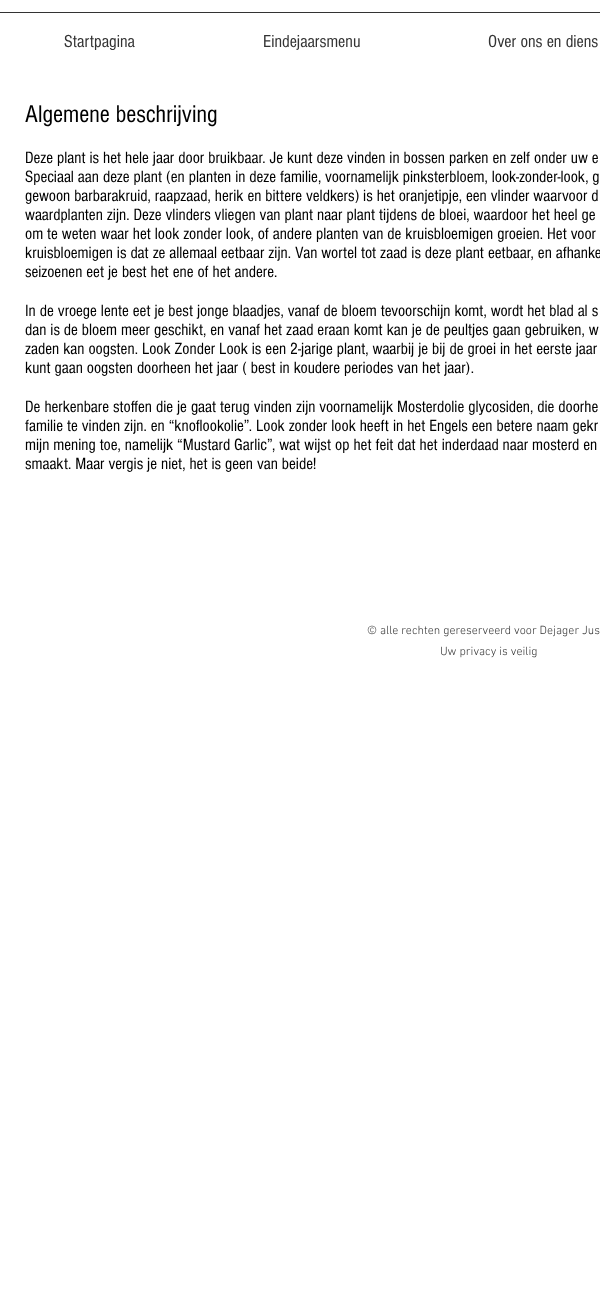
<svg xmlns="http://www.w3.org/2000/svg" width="600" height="1289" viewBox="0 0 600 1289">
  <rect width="100%" height="100%" fill="#ffffff"/>
  <rect x="0" y="12" width="600" height="1" fill="#333333"/>
  <text x="64" y="47" font-family="'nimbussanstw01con'" font-size="18" fill="#333333">Startpagina</text>
  <text x="263" y="47" font-family="'nimbussanstw01con'" font-size="18" fill="#333333">Eindejaarsmenu</text>
  <text x="488" y="47" font-family="'nimbussanstw01con'" font-size="18" fill="#333333">Over ons en diens</text>
  <text x="25" y="122" font-family="'nimbussanstw01con'" font-size="25" fill="#000000">Algemene beschrijving</text>
  <text x="25" y="163" font-family="'nimbussanstw01con'" font-size="17" fill="#000000">Deze plant is het hele jaar door bruikbaar. Je kunt deze vinden in bossen parken en zelf onder uw e</text>
  <text x="25" y="182" font-family="'nimbussanstw01con'" font-size="17" fill="#000000">Speciaal aan deze plant (en planten in deze familie, voornamelijk pinksterbloem, look-zonder-look, g</text>
  <text x="25" y="201" font-family="'nimbussanstw01con'" font-size="17" fill="#000000">gewoon barbarakruid, raapzaad, herik en bittere veldkers) is het oranjetipje, een vlinder waarvoor d</text>
  <text x="25" y="220" font-family="'nimbussanstw01con'" font-size="17" fill="#000000">waardplanten zijn. Deze vlinders vliegen van plant naar plant tijdens de bloei, waardoor het heel ge</text>
  <text x="25" y="239" font-family="'nimbussanstw01con'" font-size="17" fill="#000000">om te weten waar het look zonder look, of andere planten van de kruisbloemigen groeien. Het voor</text>
  <text x="25" y="258" font-family="'nimbussanstw01con'" font-size="17" fill="#000000">kruisbloemigen is dat ze allemaal eetbaar zijn. Van wortel tot zaad is deze plant eetbaar, en afhanke</text>
  <text x="25" y="277" font-family="'nimbussanstw01con'" font-size="17" fill="#000000">seizoenen eet je best het ene of het andere.</text>
  <text x="25" y="316" font-family="'nimbussanstw01con'" font-size="17" fill="#000000">In de vroege lente eet je best jonge blaadjes, vanaf de bloem tevoorschijn komt, wordt het blad al s</text>
  <text x="25" y="335" font-family="'nimbussanstw01con'" font-size="17" fill="#000000">dan is de bloem meer geschikt, en vanaf het zaad eraan komt kan je de peultjes gaan gebruiken, w</text>
  <text x="25" y="354" font-family="'nimbussanstw01con'" font-size="17" fill="#000000">zaden kan oogsten. Look Zonder Look is een 2-jarige plant, waarbij je bij de groei in het eerste jaar</text>
  <text x="25" y="373" font-family="'nimbussanstw01con'" font-size="17" fill="#000000">kunt gaan oogsten doorheen het jaar ( best in koudere periodes van het jaar).</text>
  <text x="25" y="412" font-family="'nimbussanstw01con'" font-size="17" fill="#000000">De herkenbare stoffen die je gaat terug vinden zijn voornamelijk Mosterdolie glycosiden, die doorhe</text>
  <text x="25" y="431" font-family="'nimbussanstw01con'" font-size="17" fill="#000000">familie te vinden zijn. en “knoflookolie”. Look zonder look heeft in het Engels een betere naam gekr</text>
  <text x="25" y="450" font-family="'nimbussanstw01con'" font-size="17" fill="#000000">mijn mening toe, namelijk “Mustard Garlic”, wat wijst op het feit dat het inderdaad naar mosterd en</text>
  <text x="25" y="469" font-family="'nimbussanstw01con'" font-size="17" fill="#000000">smaakt. Maar vergis je niet, het is geen van beide!</text>
  <text x="367" y="634" font-family="'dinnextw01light'" font-size="12" font-weight="300" fill="#333333">© alle rechten gereserveerd voor Dejager Jus</text>
  <text x="440" y="655" font-family="'dinnextw01light'" font-size="12" font-weight="300" fill="#333333">Uw privacy is veilig</text>
</svg>
